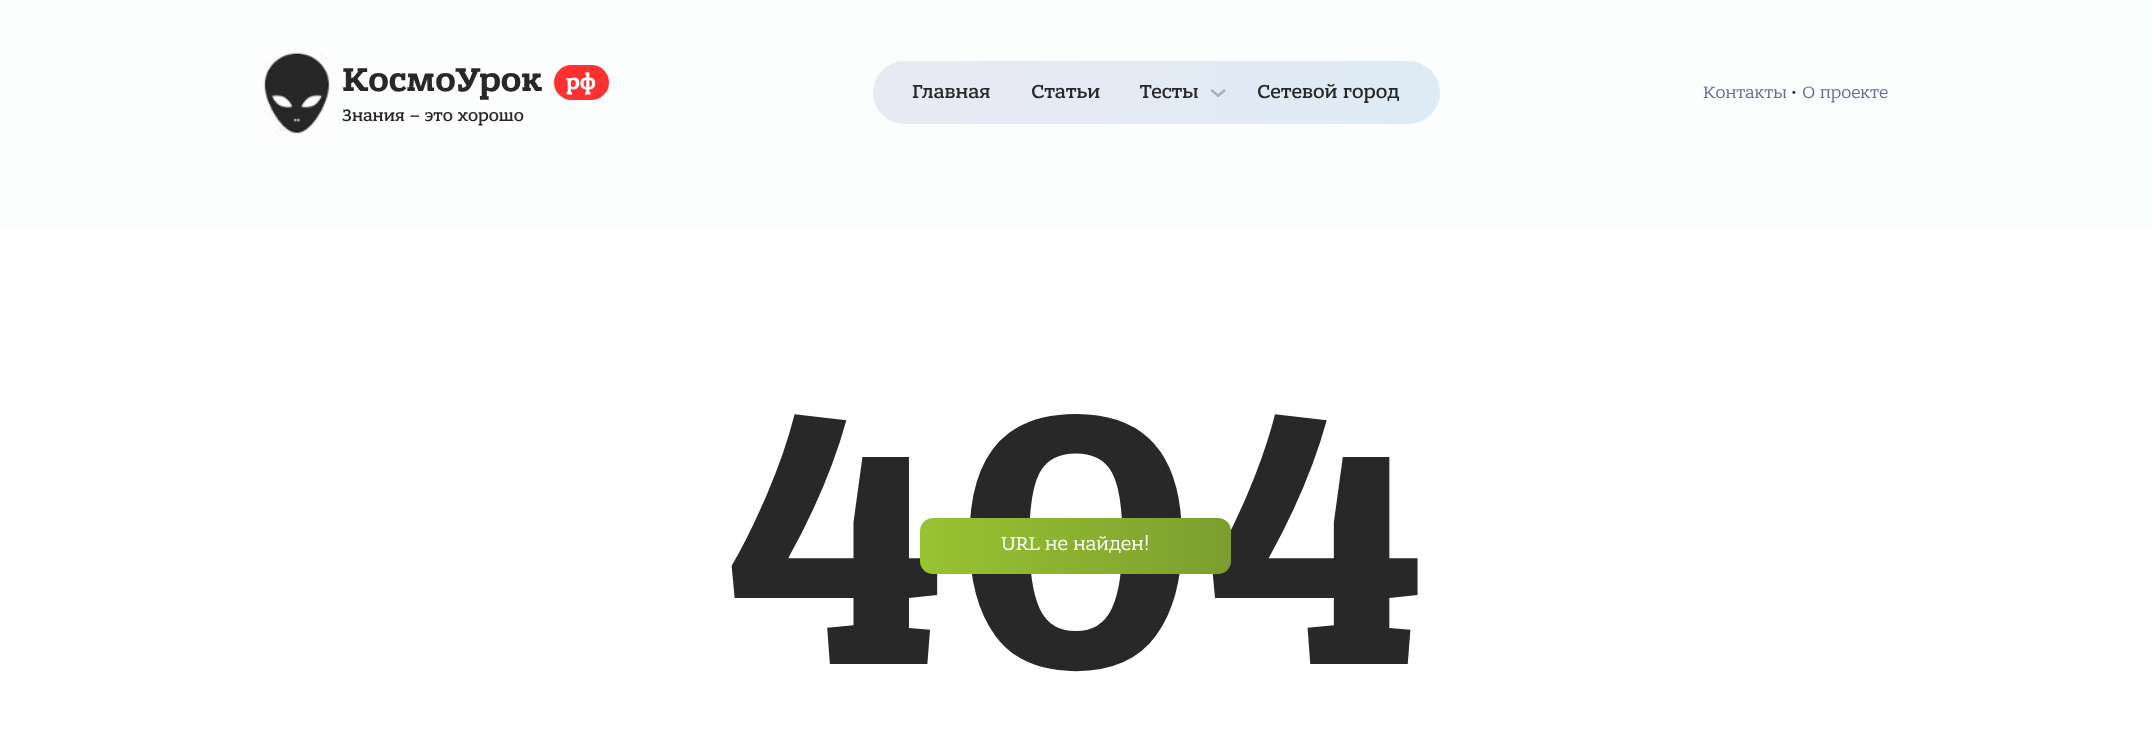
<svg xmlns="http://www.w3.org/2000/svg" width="2151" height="737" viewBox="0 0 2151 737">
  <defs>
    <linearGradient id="g1" gradientUnits="userSpaceOnUse" x1="873" y1="93" x2="1440" y2="92"><stop offset="0" stop-color="#e9e9f3"/><stop offset="1" stop-color="#ddebf5"/></linearGradient>
    <linearGradient id="g2" gradientUnits="userSpaceOnUse" x1="920" y1="546" x2="1231" y2="546"><stop offset="0" stop-color="#98c332"/><stop offset="1" stop-color="#7d9e2f"/></linearGradient>
  </defs>
  <rect width="100%" height="100%" fill="#ffffff"/>
  <rect x="0" y="0" width="2151" height="229" fill="#fcfdfd"/>
  <image x="263" y="52" width="67" height="82" href="img1.png"/>
  <text x="342" y="91" font-family="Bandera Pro" font-size="35" font-weight="bold" fill="#282828">КосмоУрок</text>
  <rect x="554" y="65" width="55" height="35" rx="17.5" fill="#ff3030"/>
  <text x="566" y="89" font-family="Bandera Pro" font-size="22" font-weight="bold" fill="#ffffff">рф</text>
  <text x="342" y="121" font-family="Bandera Pro" font-size="17.5" font-weight="500" fill="#282828">Знания – это хорошо</text>
  <rect x="873" y="61" width="567" height="63" rx="31.5" fill="url(#g1)"/>
  <text x="912" y="98" font-family="Bandera Pro" font-size="20" font-weight="500" fill="#282828">Главная</text>
  <text x="1031" y="98" font-family="Bandera Pro" font-size="20" font-weight="500" fill="#282828">Статьи</text>
  <text x="1140" y="98" font-family="Bandera Pro" font-size="20" font-weight="500" fill="#282828">Тесты</text>
  <image x="1210" y="89" width="16" height="8" href="img2.png"/>
  <text x="1257" y="98" font-family="Bandera Pro" font-size="20" font-weight="500" fill="#282828">Сетевой город</text>
  <text x="1703" y="98" font-family="Bandera Pro" font-size="17.5" fill="#6969a8">Контакты</text>
  <text x="1791" y="98" font-family="Bandera Pro" font-size="17.5" fill="#282828">•</text>
  <text x="1802" y="98" font-family="Bandera Pro" font-size="17.5" fill="#6969a8">О проекте</text>
  <text x="720" y="664" font-family="Bandera Pro" font-size="375" font-weight="bold" fill="#282828">404</text>
  <rect x="920" y="518" width="311" height="56" rx="13" fill="url(#g2)"/>
  <text x="1001" y="550" font-family="Bandera Pro" font-size="20" fill="#ffffff">URL не найден!</text>
</svg>
